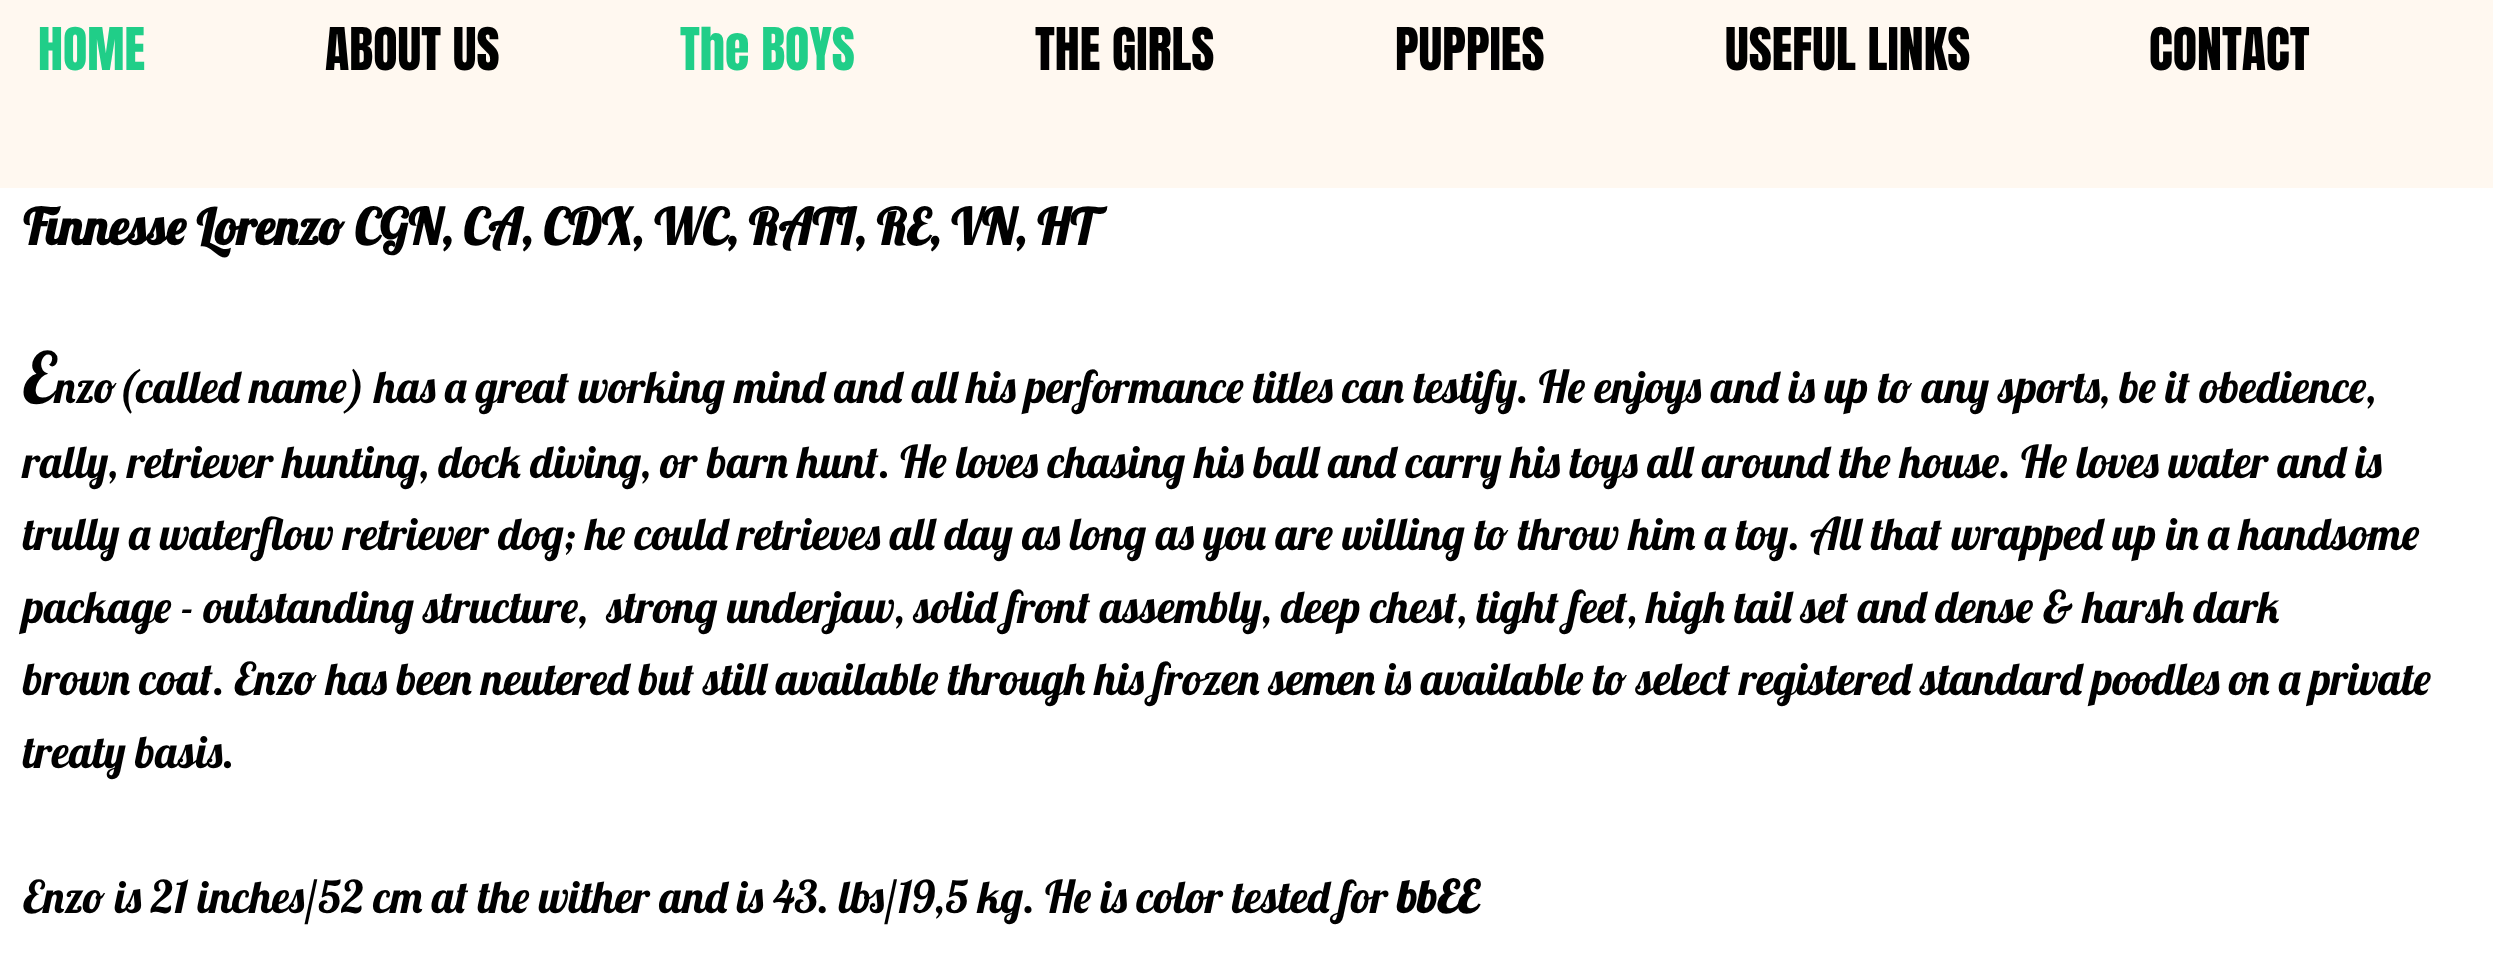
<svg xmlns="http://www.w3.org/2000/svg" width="2493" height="972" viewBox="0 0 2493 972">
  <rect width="100%" height="100%" fill="#ffffff"/>
  <rect x="0" y="0" width="2493" height="188" fill="#fff8f0"/>
  <text x="38" y="70" font-family="Anton" font-size="50" fill="#20ce88">HOME</text>
  <text x="325" y="70" font-family="Anton" font-size="50" fill="#000000">ABOUT US</text>
  <text x="680" y="70" font-family="Anton" font-size="50" fill="#20ce88">The BOYS</text>
  <text x="1035" y="70" font-family="Anton" font-size="50" fill="#000000">THE GIRLS</text>
  <text x="1395" y="70" font-family="Anton" font-size="50" fill="#000000">PUPPIES</text>
  <text x="1725" y="70" font-family="Anton" font-size="50" fill="#000000">USEFUL LINKS</text>
  <text x="2149" y="70" font-family="Anton" font-size="50" fill="#000000">CONTACT</text>
  <text x="23" y="245" font-family="Lobster" font-size="50" font-weight="bold" fill="#000000">Finnesse Lorenzo CGN, CA, CDX, WC, RATI, RE, VN, HT</text>
  <text x="23" y="403" font-family="Lobster" font-size="70" fill="#000000">E</text>
  <text x="55" y="403" font-family="Lobster" font-size="45" fill="#000000">nzo(called name) has a great working mind and all his performance titles can testify. He enjoys and is up to any sports, be it obedience,</text>
  <text x="23" y="478" font-family="Lobster" font-size="45" fill="#000000">rally, retriever hunting, dock diving, or barn hunt. He loves chasing his ball and carry his toys all around the house. He loves water and is</text>
  <text x="23" y="550" font-family="Lobster" font-size="45" fill="#000000">trully a waterflow retriever dog; he could retrieves all day as long as you are willing to throw him a toy. All that wrapped up in a handsome</text>
  <text x="23" y="623" font-family="Lobster" font-size="45" fill="#000000" xml:space="preserve">package - outstanding structure,  strong underjaw, solid front assembly, deep chest, tight feet, high tail set and dense &amp; harsh dark</text>
  <text x="23" y="695" font-family="Lobster" font-size="45" fill="#000000">brown coat. Enzo has been neutered but still available through his frozen semen is available to select registered standard poodles on a private</text>
  <text x="23" y="768" font-family="Lobster" font-size="45" fill="#000000">treaty basis.</text>
  <text x="23" y="913" font-family="Lobster" font-size="45" fill="#000000">Enzo is 21 inches/52 cm at the wither and is 43. lbs/19,5 kg. He is color tested for</text>
  <text x="1397" y="913" font-family="Lobster" font-size="45" font-weight="bold" fill="#000000">bbEE</text>
</svg>
